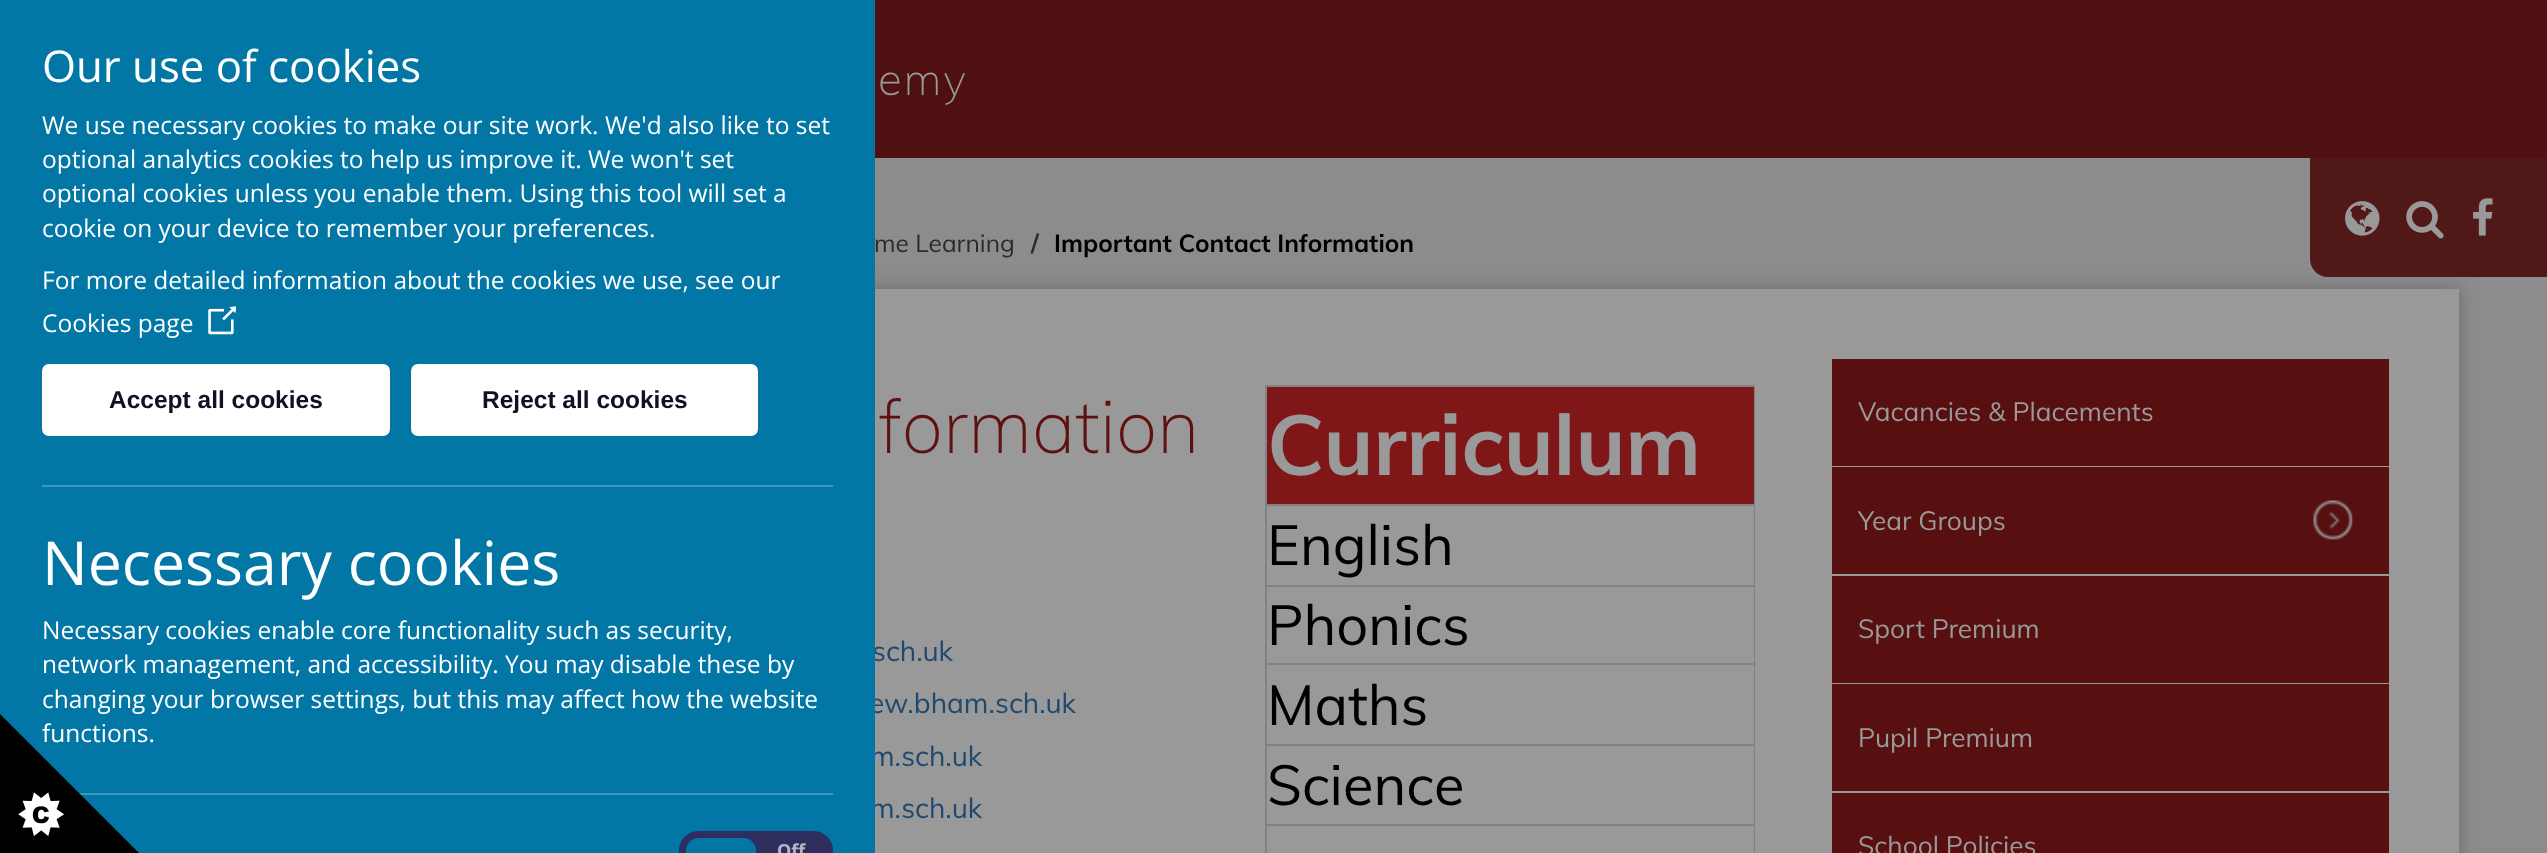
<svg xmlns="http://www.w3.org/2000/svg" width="2547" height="853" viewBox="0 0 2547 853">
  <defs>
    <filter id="blur1" x="-50%" y="-200%" width="200%" height="500%"><feGaussianBlur stdDeviation="9"/></filter>
  </defs>
  <rect width="100%" height="100%" fill="#8c8c8c"/>
  <rect x="88" y="287" width="2373" height="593" fill="#000000" fill-opacity="0.2" filter="url(#blur1)"/>
  <rect x="875" y="289" width="1584" height="564" fill="#999999"/>
  <text x="872" y="661" font-family="Muli" font-size="28" fill="#1f496e">sch.uk</text>
  <text x="869" y="713" font-family="Muli" font-size="28" fill="#1f496e">ew.bham.sch.uk</text>
  <text x="870" y="766" font-family="Muli" font-size="28" fill="#1f496e">m.sch.uk</text>
  <text x="870" y="818" font-family="Muli" font-size="28" fill="#1f496e">m.sch.uk</text>
  <rect x="0" y="0" width="875" height="853" fill="#0276a5"/>
  <text x="42" y="82" font-family="Open Sans" font-size="43.75" fill="#ffffff">Our use of cookies</text>
  <text x="42" y="134" font-family="Open Sans" font-size="24.5" fill="#ffffff">We use necessary cookies to make our site work. We'd also like to set</text>
  <text x="42" y="168" font-family="Open Sans" font-size="24.5" fill="#ffffff">optional analytics cookies to help us improve it. We won't set</text>
  <text x="42" y="202" font-family="Open Sans" font-size="24.5" fill="#ffffff">optional cookies unless you enable them. Using this tool will set a</text>
  <text x="42" y="237" font-family="Open Sans" font-size="24.5" fill="#ffffff">cookie on your device to remember your preferences.</text>
  <text x="42" y="289" font-family="Open Sans" font-size="24.5" fill="#ffffff">For more detailed information about the cookies we use, see our</text>
  <text x="42" y="332" font-family="Open Sans" font-size="24.5" fill="#ffffff">Cookies page</text>
  <image x="208" y="306" width="28" height="29" href="img1.png"/>
  <rect x="44" y="366" width="344" height="68" rx="5" fill="#ffffff" stroke="#ffffff" stroke-width="4"/>
  <text x="109" y="408" font-family="Liberation Sans" font-size="24.5" font-weight="bold" fill="#111125">Accept all cookies</text>
  <rect x="413" y="366" width="343" height="68" rx="5" fill="#ffffff" stroke="#ffffff" stroke-width="4"/>
  <text x="482" y="408" font-family="Liberation Sans" font-size="24.5" font-weight="bold" fill="#111125">Reject all cookies</text>
  <rect x="42" y="485" width="791" height="2" fill="#4198bc"/>
  <text x="42" y="585" font-family="Open Sans" font-size="60.75" fill="#ffffff">Necessary cookies</text>
  <text x="42" y="639" font-family="Open Sans" font-size="24.5" fill="#ffffff">Necessary cookies enable core functionality such as security,</text>
  <text x="42" y="673" font-family="Open Sans" font-size="24.5" fill="#ffffff">network management, and accessibility. You may disable these by</text>
  <text x="42" y="708" font-family="Open Sans" font-size="24.5" fill="#ffffff">changing your browser settings, but this may affect how the website</text>
  <text x="42" y="742" font-family="Open Sans" font-size="24.5" fill="#ffffff">functions.</text>
  <rect x="79" y="793" width="754" height="2" fill="#4198bc"/>
  <rect x="682.5" y="834.5" width="147" height="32" rx="16" fill="#2f2f5f" stroke="#2f2f5f" stroke-width="7"/>
  <rect x="686" y="838" width="70" height="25" rx="12.5" fill="#0276a5"/>
  <text x="777" y="857" font-family="Open Sans" font-size="18" font-weight="bold" fill="#b6b6c7">Off</text>
  <image x="0" y="714" width="139" height="139" href="img2.png"/>
  <rect x="875" y="0" width="1672" height="158" fill="#4e1010"/>
  <text x="878" y="95" font-family="Muli" font-size="43.75" font-weight="200" letter-spacing="2" fill="#999999">emy</text>
  <path d="M2310 158H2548V277H2328C2318 277 2310 269 2310 259Z" fill="#501917"/>
  <image x="2345" y="201" width="35" height="35" href="img3.png"/>
  <image x="2406" y="201" width="38" height="38" href="img4.png"/>
  <image x="2473" y="198" width="20" height="38" href="img5.png"/>
  <text x="874" y="252" font-family="Muli" font-size="24.5" fill="#292c2e">me Learning</text>
  <text x="1031" y="252" font-family="Muli" font-size="24.5" font-weight="bold" fill="#292c2e">/</text>
  <text x="1054" y="252" font-family="Muli" font-size="24.5" font-weight="bold" fill="#000000">Important Contact Information</text>
  <text x="879" y="453" font-family="Muli" font-size="74.5" font-weight="200" fill="#5e1111">formation</text>
  <rect x="1265" y="385" width="490" height="2" fill="#828282"/>
  <rect x="1754" y="385" width="1" height="468" fill="#828282"/>
  <rect x="1265" y="385" width="2" height="468" fill="#828282"/>
  <rect x="1267" y="387" width="487" height="117" fill="#7f1718"/>
  <text x="1267" y="475" font-family="Muli" font-size="84" font-weight="bold" fill="#999999">Curriculum</text>
  <rect x="1265" y="504" width="490" height="2" fill="#828282"/>
  <text x="1267" y="565" font-family="Muli" font-size="56" fill="#000000">English</text>
  <rect x="1265" y="585" width="490" height="2" fill="#828282"/>
  <text x="1267" y="645" font-family="Muli" font-size="56" fill="#000000">Phonics</text>
  <rect x="1265" y="663" width="490" height="2" fill="#828282"/>
  <text x="1267" y="725" font-family="Muli" font-size="56" fill="#000000">Maths</text>
  <rect x="1265" y="744" width="490" height="2" fill="#828282"/>
  <text x="1267" y="805" font-family="Muli" font-size="56" fill="#000000">Science</text>
  <rect x="1265" y="824" width="490" height="2" fill="#828282"/>
  <rect x="1832" y="359" width="557" height="107" fill="#570f0f"/>
  <text x="1858" y="421" font-family="Muli" font-size="26.25" fill="#999999">Vacancies &amp; Placements</text>
  <rect x="1832" y="467" width="557" height="107" fill="#570f0f"/>
  <text x="1858" y="530" font-family="Muli" font-size="26.25" fill="#999999">Year Groups</text>
  <image x="2313" y="500" width="40" height="40" href="img6.png"/>
  <rect x="1832" y="576" width="557" height="107" fill="#570f0f"/>
  <text x="1858" y="638" font-family="Muli" font-size="26.25" fill="#999999">Sport Premium</text>
  <rect x="1832" y="684" width="557" height="107" fill="#570f0f"/>
  <text x="1858" y="747" font-family="Muli" font-size="26.25" fill="#999999">Pupil Premium</text>
  <rect x="1832" y="793" width="557" height="60" fill="#570f0f"/>
  <text x="1858" y="855" font-family="Muli" font-size="26.25" fill="#999999">School Policies</text>
</svg>
